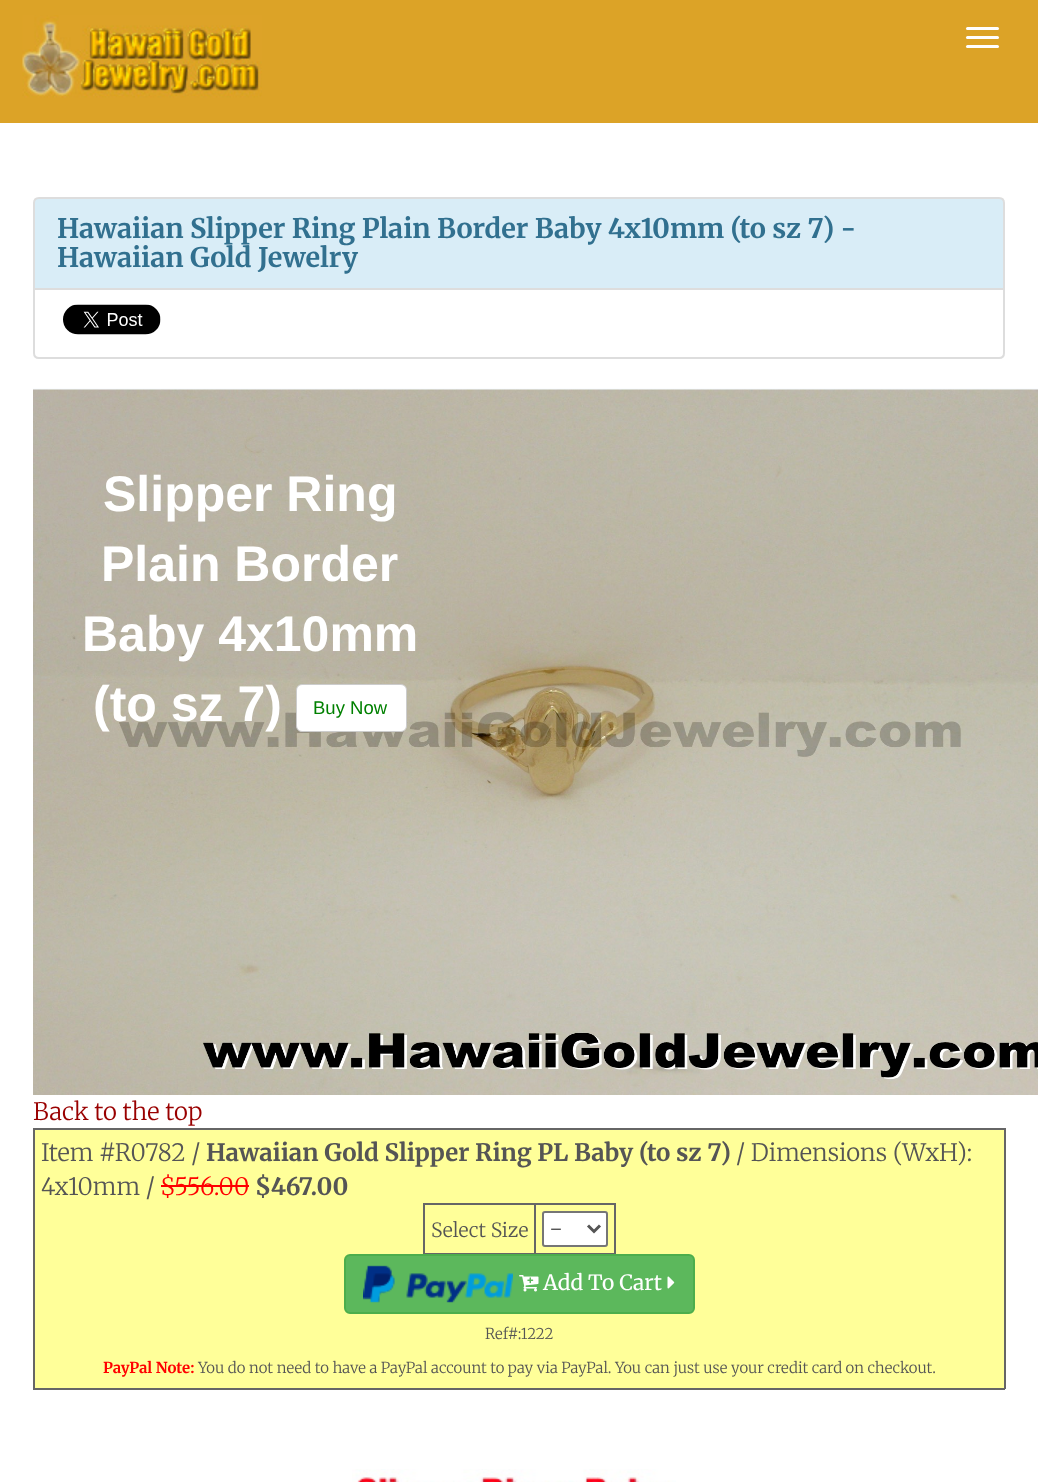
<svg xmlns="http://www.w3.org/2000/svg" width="1038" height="1482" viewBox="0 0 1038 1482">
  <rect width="100%" height="100%" fill="#ffffff"/>
  <rect x="0" y="0" width="1038" height="123" fill="#dca327"/>
  <image x="22" y="15" width="240" height="83" href="img1.png"/>
  <rect x="966" y="27" width="33" height="3" rx="1.5" fill="#ffffff"/>
  <rect x="966" y="36" width="33" height="3" rx="1.5" fill="#ffffff"/>
  <rect x="966" y="45" width="33" height="3" rx="1.5" fill="#ffffff"/>
  <path d="M39 198H999C1002 198 1004 200 1004 203V289H34V203C34 200 36 198 39 198Z" fill="#d9edf7" stroke="#dddddd" stroke-width="2"/>
  <text x="57" y="238" font-family="Merriweather" font-size="27" font-weight="bold" fill="#31708f">Hawaiian Slipper Ring Plain Border Baby 4x10mm (to sz 7) -</text>
  <text x="57" y="267" font-family="Merriweather" font-size="27" font-weight="bold" fill="#31708f">Hawaiian Gold Jewelry</text>
  <path d="M34 289H1004V353C1004 356 1002 358 999 358H39C36 358 34 356 34 353Z" fill="#ffffff" stroke="#dddddd" stroke-width="2"/>
  <image x="63" y="304" width="98" height="31" href="img2.png"/>
  <image x="33" y="388" width="1005" height="2" href="img3.png"/>
  <image x="33" y="389" width="1005" height="706" href="img4.png"/>
  <text x="103" y="511" font-family="Liberation Sans" font-size="50" font-weight="bold" fill="#ffffff">Slipper Ring</text>
  <text x="101" y="581" font-family="Liberation Sans" font-size="50" font-weight="bold" fill="#ffffff">Plain Border</text>
  <text x="82" y="651" font-family="Liberation Sans" font-size="50" font-weight="bold" fill="#ffffff">Baby 4x10mm</text>
  <text x="93" y="721" font-family="Liberation Sans" font-size="50" font-weight="bold" fill="#ffffff">(to sz 7)</text>
  <rect x="296.5" y="684.5" width="110" height="47" rx="5.5" fill="#ffffff" stroke="#cccccc"/>
  <text x="313" y="714" font-family="Liberation Sans" font-size="18.5" fill="#008000">Buy Now</text>
  <text x="33" y="1120" font-family="Merriweather" font-size="24" font-weight="300" fill="#990000">Back to the top</text>
  <rect x="35" y="1130" width="969" height="258" fill="#ffff99"/>
  <rect x="33" y="1128" width="972" height="2" fill="#666666"/>
  <rect x="1004" y="1128" width="2" height="261" fill="#666666"/>
  <rect x="33" y="1388" width="972" height="2" fill="#666666"/>
  <rect x="33" y="1128" width="2" height="261" fill="#666666"/>
  <text x="41" y="1161" font-family="Merriweather" font-size="24" font-weight="300" fill="#555555">Item #R0782 /</text>
  <text x="206" y="1161" font-family="Merriweather" font-size="24" font-weight="bold" fill="#555555">Hawaiian Gold Slipper Ring PL Baby (to sz 7)</text>
  <text x="736" y="1161" font-family="Merriweather" font-size="24" font-weight="300" fill="#555555">/ Dimensions (WxH):</text>
  <text x="41" y="1195" font-family="Merriweather" font-size="24" font-weight="300" fill="#555555">4x10mm /</text>
  <text x="160" y="1195" font-family="Merriweather" font-size="24" font-weight="300" fill="#ff0000">$556.00</text>
  <rect x="161" y="1185" width="88" height="2" fill="#ff0000"/>
  <text x="255" y="1195" font-family="Merriweather" font-size="24" font-weight="bold" fill="#555555">$467.00</text>
  <rect x="534" y="1203" width="81" height="2" fill="#666666"/>
  <rect x="614" y="1203" width="2" height="51" fill="#666666"/>
  <rect x="534" y="1253" width="81" height="1" fill="#666666"/>
  <rect x="534" y="1203" width="2" height="51" fill="#666666"/>
  <rect x="423" y="1203" width="113" height="2" fill="#666666"/>
  <rect x="423" y="1253" width="113" height="1" fill="#666666"/>
  <rect x="423" y="1203" width="2" height="51" fill="#666666"/>
  <text x="431" y="1237" font-family="Merriweather" font-size="19.5" font-weight="300" fill="#555555">Select Size</text>
  <rect x="543" y="1212" width="64" height="34" rx="2" fill="#ffffff" stroke="#767676" stroke-width="2"/>
  <path d="M588 1225.5L594 1231.5L600 1225.5" fill="none" stroke="#555555" stroke-width="3"/>
  <text x="549" y="1237" font-family="Merriweather" font-size="24" font-weight="300" fill="#555555">-</text>
  <rect x="345" y="1255" width="349" height="58" rx="5" fill="#5cb85c" stroke="#4cae4c" stroke-width="2"/>
  <image x="363" y="1265" width="150" height="38" href="img5.png"/>
  <image x="519" y="1275" width="20" height="17" href="img6.png"/>
  <text x="543" y="1290" font-family="Merriweather" font-size="21" fill="#ffffff">Add To Cart</text>
  <image x="667" y="1276" width="8" height="13" href="img7.png"/>
  <text x="485" y="1339" font-family="Merriweather" font-size="15" font-weight="300" fill="#555555">Ref#:1222</text>
  <text x="103" y="1373" font-family="Merriweather" font-size="15" font-weight="bold" fill="#ff0000">PayPal Note:</text>
  <text x="198" y="1373" font-family="Merriweather" font-size="15" font-weight="300" fill="#555555">You do not need to have a PayPal account to pay via PayPal. You can just use your credit card on checkout.</text>
  <image x="352" y="1469" width="324" height="13" href="img8.png"/>
</svg>
